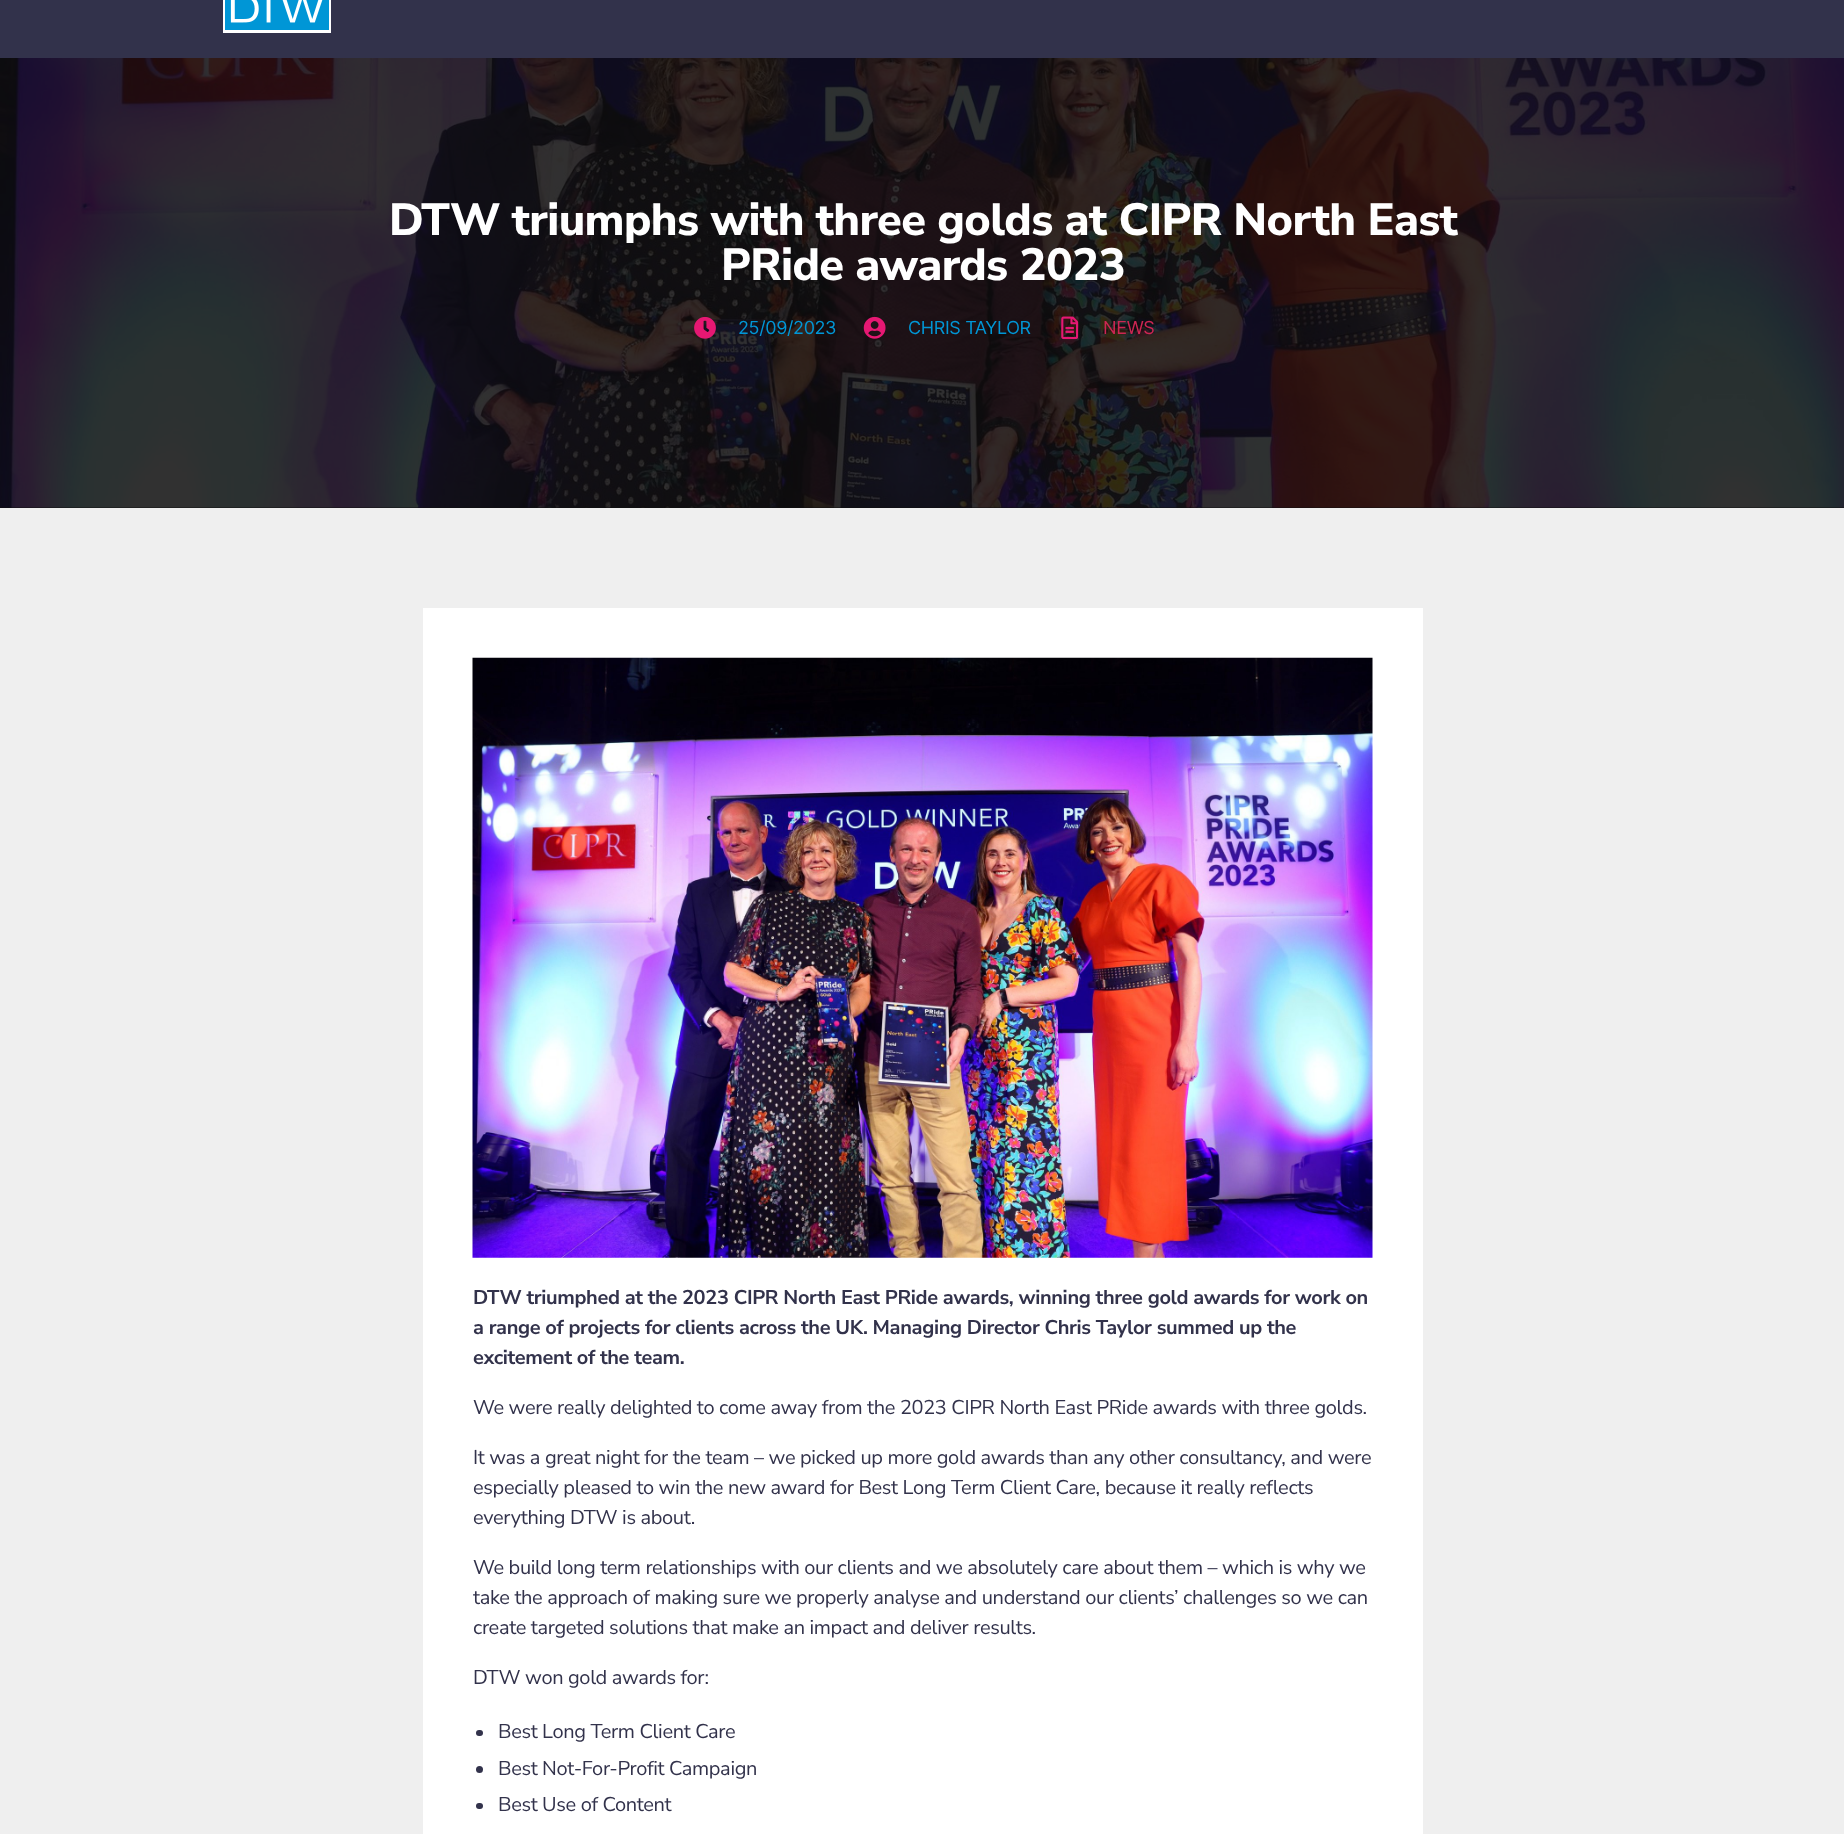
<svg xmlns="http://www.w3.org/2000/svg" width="1844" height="1834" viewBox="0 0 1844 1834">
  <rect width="100%" height="100%" fill="#32324b"/>
  <rect x="224.5" y="-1.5" width="105" height="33" fill="none" stroke="#ffffff" stroke-width="3"/>
  <image x="225" y="0" width="104" height="30" href="img1.png"/>
  <rect x="0" y="58" width="1844" height="450" fill="#0e0e0e"/>
  <image x="0" y="58" width="1844" height="450" href="img2.png"/>
  <text x="389" y="235" font-family="Nunito Sans" font-size="45" font-weight="200" letter-spacing="-0.6" fill="#ffffff">DTW triumphs with three golds at CIPR North East</text>
  <text x="721" y="280" font-family="Nunito Sans" font-size="45" font-weight="200" letter-spacing="-0.6" fill="#ffffff">PRide awards 2023</text>
  <image x="694" y="316" width="22" height="23" href="img3.png"/>
  <text x="738" y="334" font-family="Inter" font-size="18" letter-spacing="-0.34" fill="#0096d6">25/09/2023</text>
  <image x="863" y="316" width="23" height="23" href="img4.png"/>
  <text x="908" y="334" font-family="Inter" font-size="18" letter-spacing="-0.34" fill="#0096d6">CHRIS TAYLOR</text>
  <image x="1061" y="316" width="18" height="24" href="img5.png"/>
  <text x="1103" y="334" font-family="Inter" font-size="18" letter-spacing="-0.34" fill="#cd2653">NEWS</text>
  <rect x="0" y="508" width="1844" height="1326" fill="#efefef"/>
  <rect x="423" y="608" width="1000" height="1226" fill="#ffffff"/>
  <image x="472" y="657" width="901" height="601" href="img6.png"/>
  <text x="473" y="1304" font-family="'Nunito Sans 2'" font-size="20" font-weight="200" letter-spacing="-0.34" fill="#32324b">DTW triumphed at the 2023 CIPR North East PRide awards, winning three gold awards for work on</text>
  <text x="473" y="1334" font-family="'Nunito Sans 2'" font-size="20" font-weight="200" letter-spacing="-0.34" fill="#32324b">a range of projects for clients across the UK. Managing Director Chris Taylor summed up the</text>
  <text x="473" y="1364" font-family="'Nunito Sans 2'" font-size="20" font-weight="200" letter-spacing="-0.34" fill="#32324b">excitement of the team.</text>
  <text x="473" y="1414" font-family="'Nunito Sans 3'" font-size="20" font-weight="200" letter-spacing="-0.34" fill="#32324b">We were really delighted to come away from the 2023 CIPR North East PRide awards with three golds.</text>
  <text x="473" y="1464" font-family="'Nunito Sans 3'" font-size="20" font-weight="200" letter-spacing="-0.34" fill="#32324b">It was a great night for the team – we picked up more gold awards than any other consultancy, and were</text>
  <text x="473" y="1494" font-family="'Nunito Sans 3'" font-size="20" font-weight="200" letter-spacing="-0.34" fill="#32324b">especially pleased to win the new award for Best Long Term Client Care, because it really reflects</text>
  <text x="473" y="1524" font-family="'Nunito Sans 3'" font-size="20" font-weight="200" letter-spacing="-0.34" fill="#32324b">everything DTW is about.</text>
  <text x="473" y="1574" font-family="'Nunito Sans 3'" font-size="20" font-weight="200" letter-spacing="-0.34" fill="#32324b">We build long term relationships with our clients and we absolutely care about them – which is why we</text>
  <text x="473" y="1604" font-family="'Nunito Sans 3'" font-size="20" font-weight="200" letter-spacing="-0.34" fill="#32324b">take the approach of making sure we properly analyse and understand our clients’ challenges so we can</text>
  <text x="473" y="1634" font-family="'Nunito Sans 3'" font-size="20" font-weight="200" letter-spacing="-0.34" fill="#32324b">create targeted solutions that make an impact and deliver results.</text>
  <text x="473" y="1684" font-family="'Nunito Sans 3'" font-size="20" font-weight="200" letter-spacing="-0.34" fill="#32324b">DTW won gold awards for:</text>
  <rect x="476" y="1730" width="7" height="6" rx="3" fill="#32324b"/>
  <text x="498" y="1738" font-family="'Nunito Sans 3'" font-size="20" font-weight="200" letter-spacing="-0.34" fill="#32324b">Best Long Term Client Care</text>
  <circle cx="479.5" cy="1769.5" r="3.5" fill="#32324b"/>
  <text x="498" y="1775" font-family="'Nunito Sans 3'" font-size="20" font-weight="200" letter-spacing="-0.34" fill="#32324b">Best Not-For-Profit Campaign</text>
  <rect x="476" y="1803" width="7" height="6" rx="3" fill="#32324b"/>
  <text x="498" y="1811" font-family="'Nunito Sans 3'" font-size="20" font-weight="200" letter-spacing="-0.34" fill="#32324b">Best Use of Content</text>
</svg>
